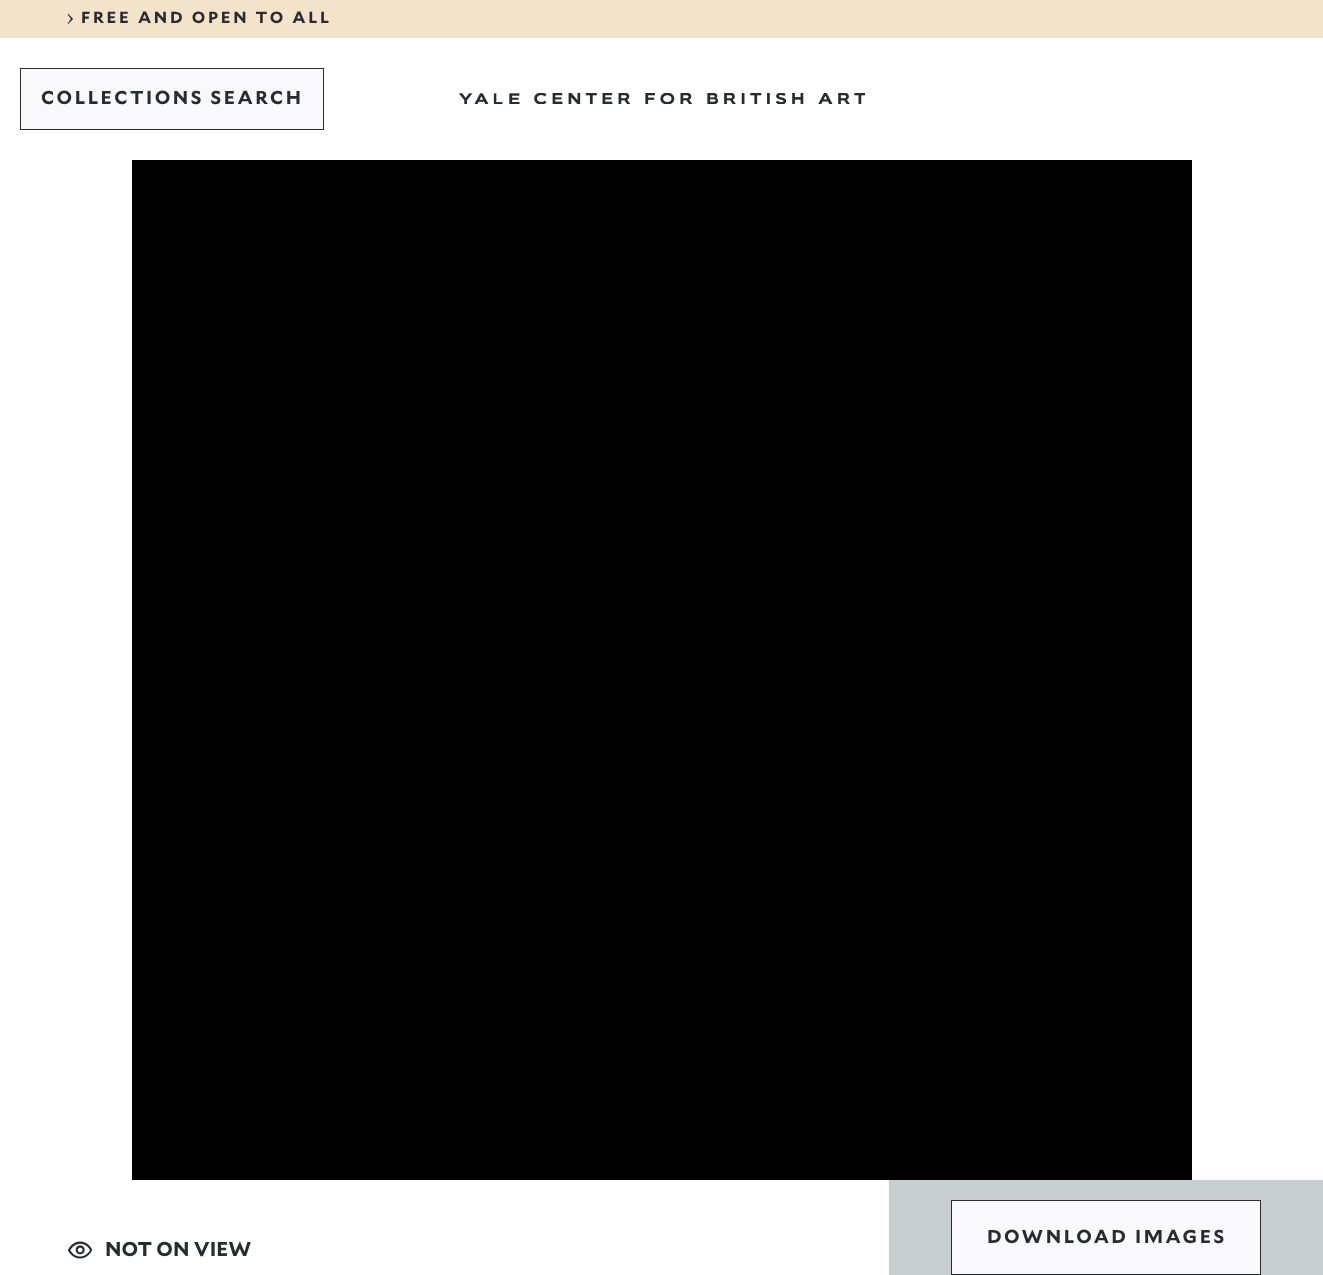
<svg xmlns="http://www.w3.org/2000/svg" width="1323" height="1275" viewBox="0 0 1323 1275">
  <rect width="100%" height="100%" fill="#ffffff"/>
  <rect x="0" y="0" width="1323" height="38" fill="#f4e3cb"/>
  <image x="67" y="13" width="6" height="11" href="img1.png"/>
  <text x="81" y="23" font-family="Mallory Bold" font-size="16.25" font-weight="bold" letter-spacing="2.75" fill="#272c30">FREE AND OPEN TO ALL</text>
  <rect x="20.5" y="68.5" width="303" height="61" fill="#f9f9fc" stroke="#272c30"/>
  <text x="41" y="104" font-family="Mallory Bold" font-size="18.75" font-weight="bold" letter-spacing="2.5" fill="#272c30">COLLECTIONS SEARCH</text>
  <image x="459" y="93" width="406" height="11" href="img2.png"/>
  <rect x="132" y="160" width="1060" height="1020" fill="#000000"/>
  <rect x="889" y="1180" width="434" height="95" fill="#c9ced1"/>
  <rect x="951.5" y="1200.5" width="309" height="74" fill="#f9f9fc" stroke="#272c30"/>
  <text x="987" y="1243" font-family="Mallory Bold" font-size="18.75" font-weight="bold" letter-spacing="2.5" fill="#272c30">DOWNLOAD IMAGES</text>
  <image x="67" y="1241" width="26" height="18" href="img3.png"/>
  <text x="105" y="1256" font-family="Mallory Bold" font-size="20" font-weight="bold" fill="#272c30">NOT ON VIEW</text>
</svg>
